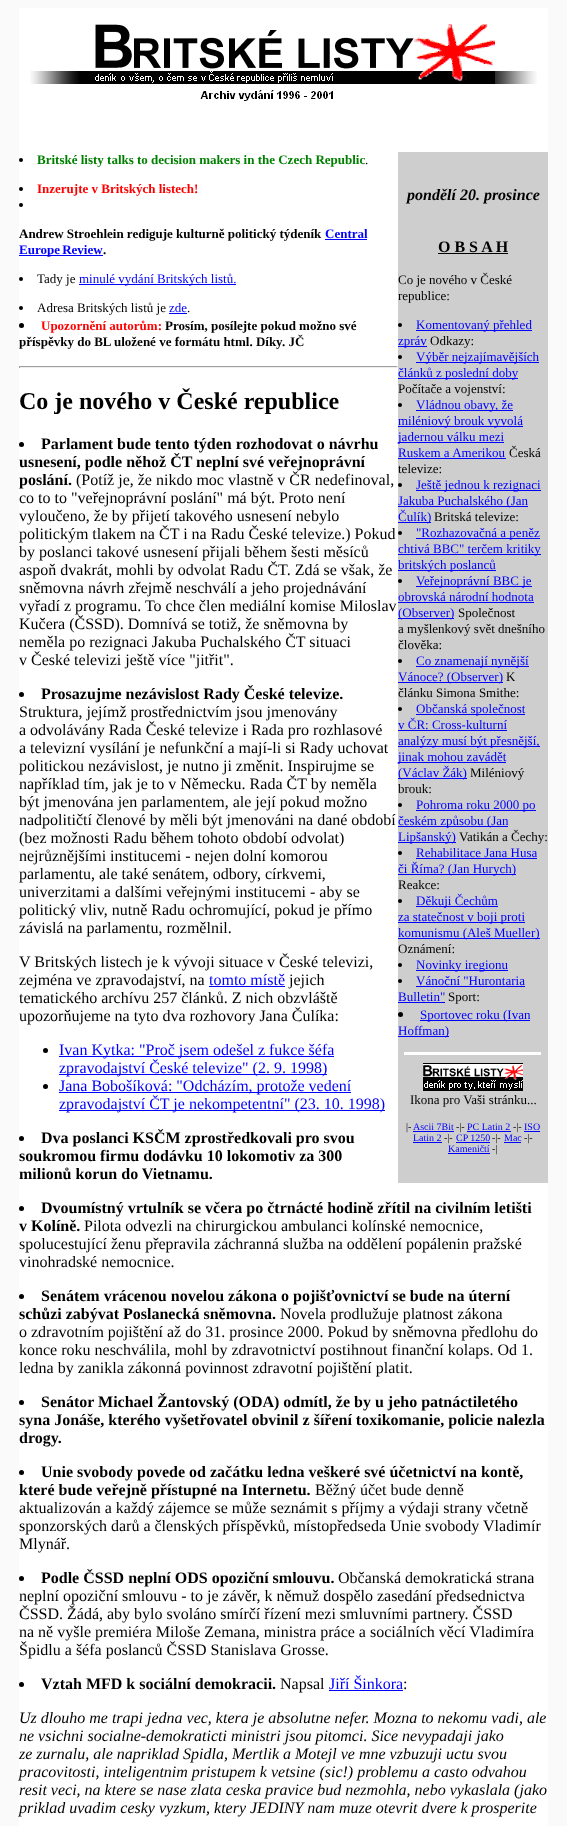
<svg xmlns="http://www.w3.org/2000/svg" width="567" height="1826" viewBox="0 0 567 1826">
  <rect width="100%" height="100%" fill="#fafafa"/>
  <rect x="19" y="8" width="529" height="1818" fill="#ffffff"/>
  <image x="30" y="24" width="507" height="77" href="img1.png"/>
  <circle cx="21" cy="160" r="2" fill="#000000"/>
  <text x="37" y="164" font-family="Liberation Serif" font-size="13" font-weight="bold" fill="#008000">Britské listy talks to decision makers in the Czech Republic</text>
  <text x="365" y="164" font-family="Liberation Serif" font-size="13" fill="#000000">.</text>
  <circle cx="21" cy="189" r="2" fill="#000000"/>
  <text x="37" y="193" font-family="Liberation Serif" font-size="13" font-weight="bold" fill="#ff0000">Inzerujte v Britských listech!</text>
  <circle cx="21" cy="205" r="2" fill="#000000"/>
  <text x="19" y="238" font-family="Liberation Serif" font-size="13" font-weight="bold" fill="#000000">Andrew Stroehlein rediguje kulturně politický týdeník</text>
  <text x="325" y="238" font-family="Liberation Serif" font-size="13" font-weight="bold" fill="#0000ff">Central</text>
  <rect x="325" y="239" width="42" height="1" fill="#0000ff"/>
  <rect x="19" y="255" width="84" height="1" fill="#0000ff"/>
  <text x="19" y="254" word-spacing="-1" font-family="Liberation Serif" font-size="13" font-weight="bold" fill="#0000ff">Europe Review</text>
  <text x="103" y="254" font-family="Liberation Serif" font-size="13" font-weight="bold" fill="#000000">.</text>
  <circle cx="21" cy="279" r="2" fill="#000000"/>
  <text x="37" y="283" font-family="Liberation Serif" font-size="13" fill="#000000">Tady je</text>
  <rect x="79" y="284" width="157" height="1" fill="#0000ff"/>
  <text x="79" y="283" font-family="Liberation Serif" font-size="13" fill="#0000ff">minulé vydání Britských listů.</text>
  <circle cx="21" cy="308" r="2" fill="#000000"/>
  <text x="37" y="312" font-family="Liberation Serif" font-size="13" fill="#000000">Adresa Britských listů je</text>
  <text x="169" y="312" font-family="Liberation Serif" font-size="13" fill="#0000ff">zde</text>
  <text x="187" y="312" font-family="Liberation Serif" font-size="13" fill="#000000">.</text>
  <rect x="169" y="313" width="18" height="1" fill="#0000ff"/>
  <rect x="398" y="152" width="150" height="1031" fill="#cecece"/>
  <text x="407" y="200" font-family="Liberation Serif" font-size="16" font-weight="bold" font-style="italic" fill="#000000">pondělí 20. prosince</text>
  <text x="438" y="252" font-family="Liberation Serif" font-size="16" font-weight="bold" fill="#000000">O B S A H</text>
  <rect x="438" y="253" width="70" height="1" fill="#000000"/>
  <text x="398" y="284" font-family="Liberation Serif" font-size="13" fill="#000000">Co je nového v České</text>
  <text x="398" y="300" font-family="Liberation Serif" font-size="13" fill="#000000">republice:</text>
  <circle cx="400" cy="325" r="2" fill="#000000"/>
  <rect x="416" y="330" width="116" height="1" fill="#0000ff"/>
  <text x="416" y="329" font-family="Liberation Serif" font-size="13" fill="#0000ff">Komentovaný přehled</text>
  <rect x="398" y="346" width="29" height="1" fill="#0000ff"/>
  <text x="398" y="345" font-family="Liberation Serif" font-size="13" fill="#0000ff">zpráv</text>
  <text x="430" y="345" font-family="Liberation Serif" font-size="13" fill="#000000">Odkazy:</text>
  <circle cx="400" cy="357" r="2" fill="#000000"/>
  <rect x="416" y="362" width="123" height="1" fill="#0000ff"/>
  <text x="416" y="361" font-family="Liberation Serif" font-size="13" fill="#0000ff">Výběr nejzajímavějších</text>
  <rect x="398" y="378" width="120" height="1" fill="#0000ff"/>
  <text x="398" y="377" font-family="Liberation Serif" font-size="13" fill="#0000ff">článků z poslední doby</text>
  <text x="398" y="393" font-family="Liberation Serif" font-size="13" fill="#000000">Počítače a vojenství:</text>
  <circle cx="400" cy="405" r="2" fill="#000000"/>
  <rect x="416" y="410" width="97" height="1" fill="#0000ff"/>
  <text x="416" y="409" font-family="Liberation Serif" font-size="13" fill="#0000ff">Vládnou obavy, že</text>
  <rect x="398" y="426" width="125" height="1" fill="#0000ff"/>
  <text x="398" y="425" font-family="Liberation Serif" font-size="13" fill="#0000ff">miléniový brouk vyvolá</text>
  <rect x="398" y="442" width="106" height="1" fill="#0000ff"/>
  <text x="398" y="441" font-family="Liberation Serif" font-size="13" fill="#0000ff">jadernou válku mezi</text>
  <text x="398" y="457" font-family="Liberation Serif" font-size="13" fill="#0000ff">Ruskem a Amerikou</text>
  <rect x="398" y="458" width="108" height="1" fill="#0000ff"/>
  <text x="509" y="457" font-family="Liberation Serif" font-size="13" fill="#000000">Česká</text>
  <text x="398" y="473" font-family="Liberation Serif" font-size="13" fill="#000000">televize:</text>
  <circle cx="400" cy="485" r="2" fill="#000000"/>
  <rect x="416" y="490" width="125" height="1" fill="#0000ff"/>
  <text x="416" y="489" font-family="Liberation Serif" font-size="13" fill="#0000ff">Ještě jednou k rezignaci</text>
  <rect x="398" y="506" width="130" height="1" fill="#0000ff"/>
  <text x="398" y="505" font-family="Liberation Serif" font-size="13" fill="#0000ff">Jakuba Puchalského (Jan</text>
  <rect x="398" y="522" width="33" height="1" fill="#0000ff"/>
  <text x="398" y="521" font-family="Liberation Serif" font-size="13" fill="#0000ff">Čulík)</text>
  <text x="434" y="521" font-family="Liberation Serif" font-size="13" fill="#000000">Britská televize:</text>
  <circle cx="400" cy="533" r="2" fill="#000000"/>
  <rect x="416" y="538" width="124" height="1" fill="#0000ff"/>
  <text x="416" y="537" font-family="Liberation Serif" font-size="13" fill="#0000ff">"Rozhazovačná a peněz</text>
  <rect x="398" y="554" width="143" height="1" fill="#0000ff"/>
  <text x="398" y="553" font-family="Liberation Serif" font-size="13" fill="#0000ff">chtivá BBC" terčem kritiky</text>
  <rect x="398" y="570" width="98" height="1" fill="#0000ff"/>
  <text x="398" y="569" font-family="Liberation Serif" font-size="13" fill="#0000ff">britských poslanců</text>
  <circle cx="400" cy="581" r="2" fill="#000000"/>
  <rect x="416" y="586" width="116" height="1" fill="#0000ff"/>
  <text x="416" y="585" font-family="Liberation Serif" font-size="13" fill="#0000ff">Veřejnoprávní BBC je</text>
  <text x="398" y="601" font-family="Liberation Serif" font-size="13" fill="#0000ff">obrovská národní hodnota</text>
  <rect x="398" y="602" width="136" height="1" fill="#0000ff"/>
  <rect x="398" y="618" width="56" height="1" fill="#0000ff"/>
  <text x="398" y="617" font-family="Liberation Serif" font-size="13" fill="#0000ff">(Observer)</text>
  <text x="458" y="617" font-family="Liberation Serif" font-size="13" fill="#000000">Společnost</text>
  <text x="398" y="633" font-family="Liberation Serif" font-size="13" fill="#000000">a myšlenkový svět dnešního</text>
  <text x="398" y="649" font-family="Liberation Serif" font-size="13" fill="#000000">člověka:</text>
  <circle cx="400" cy="661" r="2" fill="#000000"/>
  <rect x="416" y="666" width="113" height="1" fill="#0000ff"/>
  <text x="416" y="665" font-family="Liberation Serif" font-size="13" fill="#0000ff">Co znamenají nynější</text>
  <rect x="398" y="682" width="105" height="1" fill="#0000ff"/>
  <text x="398" y="681" font-family="Liberation Serif" font-size="13" fill="#0000ff">Vánoce? (Observer)</text>
  <text x="506" y="681" font-family="Liberation Serif" font-size="13" fill="#000000">K</text>
  <text x="398" y="697" font-family="Liberation Serif" font-size="13" fill="#000000">článku Simona Smithe:</text>
  <circle cx="400" cy="709" r="2" fill="#000000"/>
  <rect x="416" y="714" width="109" height="1" fill="#0000ff"/>
  <text x="416" y="713" font-family="Liberation Serif" font-size="13" fill="#0000ff">Občanská společnost</text>
  <text x="398" y="729" font-family="Liberation Serif" font-size="13" fill="#0000ff">v ČR: Cross-kulturní</text>
  <rect x="398" y="730" width="109" height="1" fill="#0000ff"/>
  <rect x="398" y="746" width="142" height="1" fill="#0000ff"/>
  <text x="398" y="745" font-family="Liberation Serif" font-size="13" fill="#0000ff">analýzy musí být přesnější,</text>
  <rect x="398" y="762" width="108" height="1" fill="#0000ff"/>
  <text x="398" y="761" font-family="Liberation Serif" font-size="13" fill="#0000ff">jinak mohou zavádět</text>
  <rect x="398" y="778" width="69" height="1" fill="#0000ff"/>
  <text x="398" y="777" font-family="Liberation Serif" font-size="13" fill="#0000ff">(Václav Žák)</text>
  <text x="470" y="777" font-family="Liberation Serif" font-size="13" fill="#000000">Miléniový</text>
  <text x="398" y="793" font-family="Liberation Serif" font-size="13" fill="#000000">brouk:</text>
  <circle cx="400" cy="805" r="2" fill="#000000"/>
  <rect x="416" y="810" width="120" height="1" fill="#0000ff"/>
  <text x="416" y="809" font-family="Liberation Serif" font-size="13" fill="#0000ff">Pohroma roku 2000 po</text>
  <rect x="398" y="826" width="110" height="1" fill="#0000ff"/>
  <text x="398" y="825" font-family="Liberation Serif" font-size="13" fill="#0000ff">českém způsobu (Jan</text>
  <rect x="398" y="842" width="58" height="1" fill="#0000ff"/>
  <text x="398" y="841" font-family="Liberation Serif" font-size="13" fill="#0000ff">Lipšanský)</text>
  <text x="459" y="841" font-family="Liberation Serif" font-size="13" fill="#000000">Vatikán a Čechy:</text>
  <circle cx="400" cy="853" r="2" fill="#000000"/>
  <text x="416" y="857" font-family="Liberation Serif" font-size="13" fill="#0000ff">Rehabilitace Jana Husa</text>
  <rect x="416" y="858" width="121" height="1" fill="#0000ff"/>
  <rect x="398" y="874" width="118" height="1" fill="#0000ff"/>
  <text x="398" y="873" font-family="Liberation Serif" font-size="13" fill="#0000ff">či Říma? (Jan Hurych)</text>
  <text x="398" y="889" font-family="Liberation Serif" font-size="13" fill="#000000">Reakce:</text>
  <circle cx="400" cy="901" r="2" fill="#000000"/>
  <rect x="416" y="906" width="82" height="1" fill="#0000ff"/>
  <text x="416" y="905" font-family="Liberation Serif" font-size="13" fill="#0000ff">Děkuji Čechům</text>
  <rect x="398" y="922" width="127" height="1" fill="#0000ff"/>
  <text x="398" y="921" font-family="Liberation Serif" font-size="13" fill="#0000ff">za statečnost v boji proti</text>
  <rect x="398" y="938" width="142" height="1" fill="#0000ff"/>
  <text x="398" y="937" font-family="Liberation Serif" font-size="13" fill="#0000ff">komunismu (Aleš Mueller)</text>
  <text x="398" y="953" font-family="Liberation Serif" font-size="13" fill="#000000">Oznámení:</text>
  <circle cx="400" cy="965" r="2" fill="#000000"/>
  <rect x="416" y="970" width="92" height="1" fill="#0000ff"/>
  <text x="416" y="969" font-family="Liberation Serif" font-size="13" fill="#0000ff">Novinky iregionu</text>
  <circle cx="400" cy="981" r="2" fill="#000000"/>
  <text x="416" y="985" font-family="Liberation Serif" font-size="13" fill="#0000ff">Vánoční "Hurontaria</text>
  <rect x="416" y="986" width="109" height="1" fill="#0000ff"/>
  <text x="398" y="1001" font-family="Liberation Serif" font-size="13" fill="#0000ff">Bulletin"</text>
  <rect x="398" y="1002" width="47" height="1" fill="#0000ff"/>
  <text x="448" y="1001" font-family="Liberation Serif" font-size="13" fill="#000000">Sport:</text>
  <rect x="420" y="1020" width="110" height="1" fill="#0000ff"/>
  <text x="420" y="1019" font-family="Liberation Serif" font-size="13" fill="#0000ff">Sportovec roku (Ivan</text>
  <rect x="398" y="1036" width="51" height="1" fill="#0000ff"/>
  <text x="398" y="1035" font-family="Liberation Serif" font-size="13" fill="#0000ff">Hoffman)</text>
  <rect x="404" y="1052" width="137" height="3" fill="#ffffff"/>
  <image x="423" y="1063" width="100" height="28" href="img2.png"/>
  <text x="410" y="1104" font-family="Liberation Serif" font-size="13" fill="#000000">Ikona pro Vaši stránku...</text>
  <text x="406" y="1130" font-family="Liberation Serif" font-size="10" fill="#000000">|-</text>
  <rect x="413" y="1131" width="41" height="1" fill="#0000ff"/>
  <text x="413" y="1130" font-family="Liberation Serif" font-size="10" fill="#0000ff">Ascii 7Bit</text>
  <text x="456" y="1130" font-family="Liberation Serif" font-size="10" fill="#000000">-|-</text>
  <rect x="467" y="1131" width="44" height="1" fill="#0000ff"/>
  <text x="467" y="1130" font-family="Liberation Serif" font-size="10" fill="#0000ff">PC Latin 2</text>
  <text x="513" y="1130" font-family="Liberation Serif" font-size="10" fill="#000000">-|-</text>
  <rect x="524" y="1131" width="16" height="1" fill="#0000ff"/>
  <text x="524" y="1130" font-family="Liberation Serif" font-size="10" fill="#0000ff">ISO</text>
  <text x="413" y="1141" font-family="Liberation Serif" font-size="10" fill="#0000ff">Latin 2</text>
  <rect x="413" y="1142" width="29" height="1" fill="#0000ff"/>
  <text x="444" y="1141" font-family="Liberation Serif" font-size="10" fill="#000000">-|-</text>
  <text x="456" y="1141" font-family="Liberation Serif" font-size="10" fill="#0000ff">CP 1250</text>
  <rect x="456" y="1142" width="34" height="1" fill="#0000ff"/>
  <text x="492" y="1141" font-family="Liberation Serif" font-size="10" fill="#000000">-|-</text>
  <text x="504" y="1141" font-family="Liberation Serif" font-size="10" fill="#0000ff">Mac</text>
  <rect x="504" y="1142" width="17" height="1" fill="#0000ff"/>
  <text x="524" y="1141" font-family="Liberation Serif" font-size="10" fill="#000000">-|-</text>
  <text x="448" y="1152" font-family="Liberation Serif" font-size="10" fill="#0000ff">Kameničtí</text>
  <rect x="448" y="1153" width="42" height="1" fill="#0000ff"/>
  <text x="492" y="1152" font-family="Liberation Serif" font-size="10" fill="#000000">-|</text>
  <circle cx="400.5" cy="1014.5" r="2.5" fill="#000000"/>
  <circle cx="21.5" cy="325.5" r="2.5" fill="#000000"/>
  <text x="41" y="330" font-family="Liberation Serif" font-size="13" font-weight="bold" fill="#ff0000">Upozornění autorům:</text>
  <text x="165" y="330" font-family="Liberation Serif" font-size="13" font-weight="bold" fill="#000000">Prosím, posílejte pokud možno své</text>
  <text x="19" y="346" font-family="Liberation Serif" font-size="13" font-weight="bold" fill="#000000">příspěvky do BL uložené ve formátu html. Díky. JČ</text>
  <rect x="19" y="366" width="379" height="1" fill="#9f9f9f"/>
  <rect x="397" y="366" width="1" height="2" fill="#eeeeee"/>
  <rect x="19" y="367" width="379" height="1" fill="#eeeeee"/>
  <rect x="19" y="366" width="1" height="2" fill="#9f9f9f"/>
  <text x="19" y="409" font-family="Liberation Serif" font-size="24" font-weight="bold" fill="#000000">Co je nového v České republice</text>
  <circle cx="21.5" cy="444.5" r="2.5" fill="#000000"/>
  <text x="41" y="449" font-family="Liberation Serif" font-size="16" font-weight="bold" fill="#000000">Parlament bude tento týden rozhodovat o návrhu</text>
  <text x="19" y="467" font-family="Liberation Serif" font-size="16" font-weight="bold" fill="#000000">usnesení, podle něhož ČT neplní své veřejnoprávní</text>
  <text x="19" y="485" font-family="Liberation Serif" font-size="16" font-weight="bold" fill="#000000">poslání.</text>
  <text x="76" y="485" font-family="Liberation Serif" font-size="16" fill="#000000">(Potíž je, že nikdo moc vlastně v ČR nedefinoval,</text>
  <text x="19" y="503" font-family="Liberation Serif" font-size="16" fill="#000000">co to to "veřejnoprávní poslání" má být. Proto není</text>
  <text x="19" y="521" font-family="Liberation Serif" font-size="16" fill="#000000">vyloučeno, že by přijetí takového usnesení nebylo</text>
  <text x="19" y="539" font-family="Liberation Serif" font-size="16" fill="#000000">politickým tlakem na ČT i na Radu České televize.) Pokud</text>
  <text x="19" y="557" font-family="Liberation Serif" font-size="16" fill="#000000">by poslanci takové usnesení přijali během šesti měsíců</text>
  <text x="19" y="575" font-family="Liberation Serif" font-size="16" fill="#000000">aspoň dvakrát, mohli by odvolat Radu ČT. Zdá se však, že</text>
  <text x="19" y="593" font-family="Liberation Serif" font-size="16" fill="#000000">sněmovna návrh zřejmě neschválí a jeho projednávání</text>
  <text x="19" y="611" font-family="Liberation Serif" font-size="16" fill="#000000">vyřadí z programu. To chce člen mediální komise Miloslav</text>
  <text x="19" y="629" font-family="Liberation Serif" font-size="16" fill="#000000">Kučera (ČSSD). Domnívá se totiž, že sněmovna by</text>
  <text x="19" y="647" font-family="Liberation Serif" font-size="16" fill="#000000">neměla po rezignaci Jakuba Puchalského ČT situaci</text>
  <text x="19" y="665" font-family="Liberation Serif" font-size="16" fill="#000000">v České televizi ještě více "jitřit".</text>
  <circle cx="21.5" cy="694.5" r="2.5" fill="#000000"/>
  <text x="41" y="699" font-family="Liberation Serif" font-size="16" font-weight="bold" fill="#000000">Prosazujme nezávislost Rady České televize.</text>
  <text x="19" y="717" font-family="Liberation Serif" font-size="16" fill="#000000">Struktura, jejímž prostřednictvím jsou jmenovány</text>
  <text x="19" y="735" font-family="Liberation Serif" font-size="16" fill="#000000">a odvolávány Rada České televize i Rada pro rozhlasové</text>
  <text x="19" y="753" font-family="Liberation Serif" font-size="16" fill="#000000">a televizní vysílání je nefunkční a mají-li si Rady uchovat</text>
  <text x="19" y="771" font-family="Liberation Serif" font-size="16" fill="#000000">politickou nezávislost, je nutno ji změnit. Inspirujme se</text>
  <text x="19" y="789" font-family="Liberation Serif" font-size="16" fill="#000000">například tím, jak je to v Německu. Rada ČT by neměla</text>
  <text x="19" y="807" font-family="Liberation Serif" font-size="16" fill="#000000">být jmenována jen parlamentem, ale její pokud možno</text>
  <text x="19" y="825" font-family="Liberation Serif" font-size="16" fill="#000000">nadpolitičtí členové by měli být jmenováni na dané období</text>
  <text x="19" y="843" font-family="Liberation Serif" font-size="16" fill="#000000">(bez možnosti Radu během tohoto období odvolat)</text>
  <text x="19" y="861" font-family="Liberation Serif" font-size="16" fill="#000000">nejrůznějšími institucemi - nejen dolní komorou</text>
  <text x="19" y="879" font-family="Liberation Serif" font-size="16" fill="#000000">parlamentu, ale také senátem, odbory, církvemi,</text>
  <text x="19" y="897" font-family="Liberation Serif" font-size="16" fill="#000000">univerzitami a dalšími veřejnými institucemi - aby se</text>
  <text x="19" y="915" font-family="Liberation Serif" font-size="16" fill="#000000">politický vliv, nutně Radu ochromující, pokud je přímo</text>
  <text x="19" y="933" font-family="Liberation Serif" font-size="16" fill="#000000">závislá na parlamentu, rozmělnil.</text>
  <text x="19" y="967" font-family="Liberation Serif" font-size="16" fill="#000000">V Britských listech je k vývoji situace v České televizi,</text>
  <text x="19" y="985" font-family="Liberation Serif" font-size="16" fill="#000000">zejména ve zpravodajství, na</text>
  <text x="209" y="985" font-family="Liberation Serif" font-size="16" fill="#0000ff">tomto místě</text>
  <rect x="209" y="986" width="76" height="1" fill="#0000ff"/>
  <text x="289" y="985" font-family="Liberation Serif" font-size="16" fill="#000000">jejich</text>
  <text x="19" y="1003" font-family="Liberation Serif" font-size="16" fill="#000000">tematického archívu 257 článků. Z nich obzvláště</text>
  <text x="19" y="1021" font-family="Liberation Serif" font-size="16" fill="#000000">upozorňujeme na tyto dva rozhovory Jana Čulíka:</text>
  <circle cx="45.5" cy="1050.5" r="2.5" fill="#000000"/>
  <rect x="59" y="1056" width="275" height="1" fill="#0000ff"/>
  <text x="59" y="1055" font-family="Liberation Serif" font-size="16" fill="#0000ff">Ivan Kytka: "Proč jsem odešel z fukce šéfa</text>
  <rect x="59" y="1074" width="268" height="1" fill="#0000ff"/>
  <text x="59" y="1073" font-family="Liberation Serif" font-size="16" fill="#0000ff">zpravodajství České televize" (2. 9. 1998)</text>
  <circle cx="45.5" cy="1086.5" r="2.5" fill="#000000"/>
  <rect x="59" y="1092" width="292" height="1" fill="#0000ff"/>
  <text x="59" y="1091" font-family="Liberation Serif" font-size="16" fill="#0000ff">Jana Bobošíková: "Odcházím, protože vedení</text>
  <rect x="59" y="1110" width="326" height="1" fill="#0000ff"/>
  <text x="59" y="1109" font-family="Liberation Serif" font-size="16" fill="#0000ff">zpravodajství ČT je nekompetentní" (23. 10. 1998)</text>
  <circle cx="21.5" cy="1138.5" r="2.5" fill="#000000"/>
  <text x="41" y="1143" font-family="Liberation Serif" font-size="16" font-weight="bold" fill="#000000">Dva poslanci KSČM zprostředkovali pro svou</text>
  <text x="19" y="1161" font-family="Liberation Serif" font-size="16" font-weight="bold" fill="#000000">soukromou firmu dodávku 10 lokomotiv za 300</text>
  <text x="19" y="1179" font-family="Liberation Serif" font-size="16" font-weight="bold" fill="#000000">milionů korun do Vietnamu.</text>
  <circle cx="21.5" cy="1208.5" r="2.5" fill="#000000"/>
  <text x="41" y="1213" font-family="Liberation Serif" font-size="16" font-weight="bold" fill="#000000">Dvoumístný vrtulník se včera po čtrnácté hodině zřítil na civilním letišti</text>
  <text x="19" y="1231" font-family="Liberation Serif" font-size="16" font-weight="bold" fill="#000000">v Kolíně.</text>
  <text x="84" y="1231" font-family="Liberation Serif" font-size="16" fill="#000000">Pilota odvezli na chirurgickou ambulanci kolínské nemocnice,</text>
  <text x="19" y="1249" font-family="Liberation Serif" font-size="16" fill="#000000">spolucestující ženu přepravila záchranná služba na oddělení popálenin pražské</text>
  <text x="19" y="1267" font-family="Liberation Serif" font-size="16" fill="#000000">vinohradské nemocnice.</text>
  <circle cx="21.5" cy="1296.5" r="2.5" fill="#000000"/>
  <text x="41" y="1301" font-family="Liberation Serif" font-size="16" font-weight="bold" fill="#000000">Senátem vrácenou novelou zákona o pojišťovnictví se bude na úterní</text>
  <text x="19" y="1319" font-family="Liberation Serif" font-size="16" font-weight="bold" fill="#000000">schůzi zabývat Poslanecká sněmovna.</text>
  <text x="280" y="1319" font-family="Liberation Serif" font-size="16" fill="#000000">Novela prodlužuje platnost zákona</text>
  <text x="19" y="1337" font-family="Liberation Serif" font-size="16" fill="#000000">o zdravotním pojištění až do 31. prosince 2000. Pokud by sněmovna předlohu do</text>
  <text x="19" y="1355" font-family="Liberation Serif" font-size="16" fill="#000000">konce roku neschválila, mohl by zdravotnictví postihnout finanční kolaps. Od 1.</text>
  <text x="19" y="1373" font-family="Liberation Serif" font-size="16" fill="#000000">ledna by zanikla zákonná povinnost zdravotní pojištění platit.</text>
  <circle cx="21.5" cy="1402.5" r="2.5" fill="#000000"/>
  <text x="41" y="1407" font-family="Liberation Serif" font-size="16" font-weight="bold" fill="#000000">Senátor Michael Žantovský (ODA) odmítl, že by u jeho patnáctiletého</text>
  <text x="19" y="1425" font-family="Liberation Serif" font-size="16" font-weight="bold" fill="#000000">syna Jonáše, kterého vyšetřovatel obvinil z šíření toxikomanie, policie nalezla</text>
  <text x="19" y="1443" font-family="Liberation Serif" font-size="16" font-weight="bold" fill="#000000">drogy.</text>
  <circle cx="21.5" cy="1472.5" r="2.5" fill="#000000"/>
  <text x="41" y="1477" font-family="Liberation Serif" font-size="16" font-weight="bold" fill="#000000">Unie svobody povede od začátku ledna veškeré své účetnictví na kontě,</text>
  <text x="19" y="1495" font-family="Liberation Serif" font-size="16" font-weight="bold" fill="#000000">které bude veřejně přístupné na Internetu.</text>
  <text x="315" y="1495" font-family="Liberation Serif" font-size="16" fill="#000000">Běžný účet bude denně</text>
  <text x="19" y="1513" font-family="Liberation Serif" font-size="16" fill="#000000">aktualizován a každý zájemce se může seznámit s příjmy a výdaji strany včetně</text>
  <text x="19" y="1531" font-family="Liberation Serif" font-size="16" fill="#000000">sponzorských darů a členských příspěvků, místopředseda Unie svobody Vladimír</text>
  <text x="19" y="1549" font-family="Liberation Serif" font-size="16" fill="#000000">Mlynář.</text>
  <circle cx="21.5" cy="1578.5" r="2.5" fill="#000000"/>
  <text x="41" y="1583" font-family="Liberation Serif" font-size="16" font-weight="bold" fill="#000000">Podle ČSSD neplní ODS opoziční smlouvu.</text>
  <text x="338" y="1583" font-family="Liberation Serif" font-size="16" fill="#000000">Občanská demokratická strana</text>
  <text x="19" y="1601" font-family="Liberation Serif" font-size="16" fill="#000000">neplní opoziční smlouvu - to je závěr, k němuž dospělo zasedání předsednictva</text>
  <text x="19" y="1619" font-family="Liberation Serif" font-size="16" fill="#000000">ČSSD. Žádá, aby bylo svoláno smírčí řízení mezi smluvními partnery. ČSSD</text>
  <text x="19" y="1637" font-family="Liberation Serif" font-size="16" fill="#000000">na ně vyšle premiéra Miloše Zemana, ministra práce a sociálních věcí Vladimíra</text>
  <text x="19" y="1655" font-family="Liberation Serif" font-size="16" fill="#000000">Špidlu a šéfa poslanců ČSSD Stanislava Grosse.</text>
  <circle cx="21.5" cy="1684.5" r="2.5" fill="#000000"/>
  <text x="41" y="1689" font-family="Liberation Serif" font-size="16" font-weight="bold" fill="#000000">Vztah MFD k sociální demokracii.</text>
  <text x="280" y="1689" font-family="Liberation Serif" font-size="16" fill="#000000">Napsal</text>
  <text x="329" y="1689" font-family="Liberation Serif" font-size="16" fill="#0000ff">Jiří Šinkora</text>
  <rect x="329" y="1690" width="74" height="1" fill="#0000ff"/>
  <text x="403" y="1689" font-family="Liberation Serif" font-size="16" fill="#000000">:</text>
  <text x="19" y="1723" font-family="Liberation Serif" font-size="16" font-style="italic" fill="#000000">Uz dlouho me trapi jedna vec, ktera je absolutne nefer. Mozna to nekomu vadi, ale</text>
  <text x="19" y="1741" font-family="Liberation Serif" font-size="16" font-style="italic" fill="#000000">ne vsichni socialne-demokraticti ministri jsou pitomci. Sice nevypadaji jako</text>
  <text x="19" y="1759" font-family="Liberation Serif" font-size="16" font-style="italic" fill="#000000">ze zurnalu, ale napriklad Spidla, Mertlik a Motejl ve mne vzbuzuji uctu svou</text>
  <text x="19" y="1777" font-family="Liberation Serif" font-size="16" font-style="italic" fill="#000000">pracovitosti, inteligentnim pristupem k vetsine (sic!) problemu a casto odvahou</text>
  <text x="19" y="1795" font-family="Liberation Serif" font-size="16" font-style="italic" fill="#000000">resit veci, na ktere se nase zlata ceska pravice bud nezmohla, nebo vykaslala (jako</text>
  <text x="19" y="1813" font-family="Liberation Serif" font-size="16" font-style="italic" fill="#000000">priklad uvadim cesky vyzkum, ktery JEDINY nam muze otevrit dvere k prosperite</text>
</svg>
